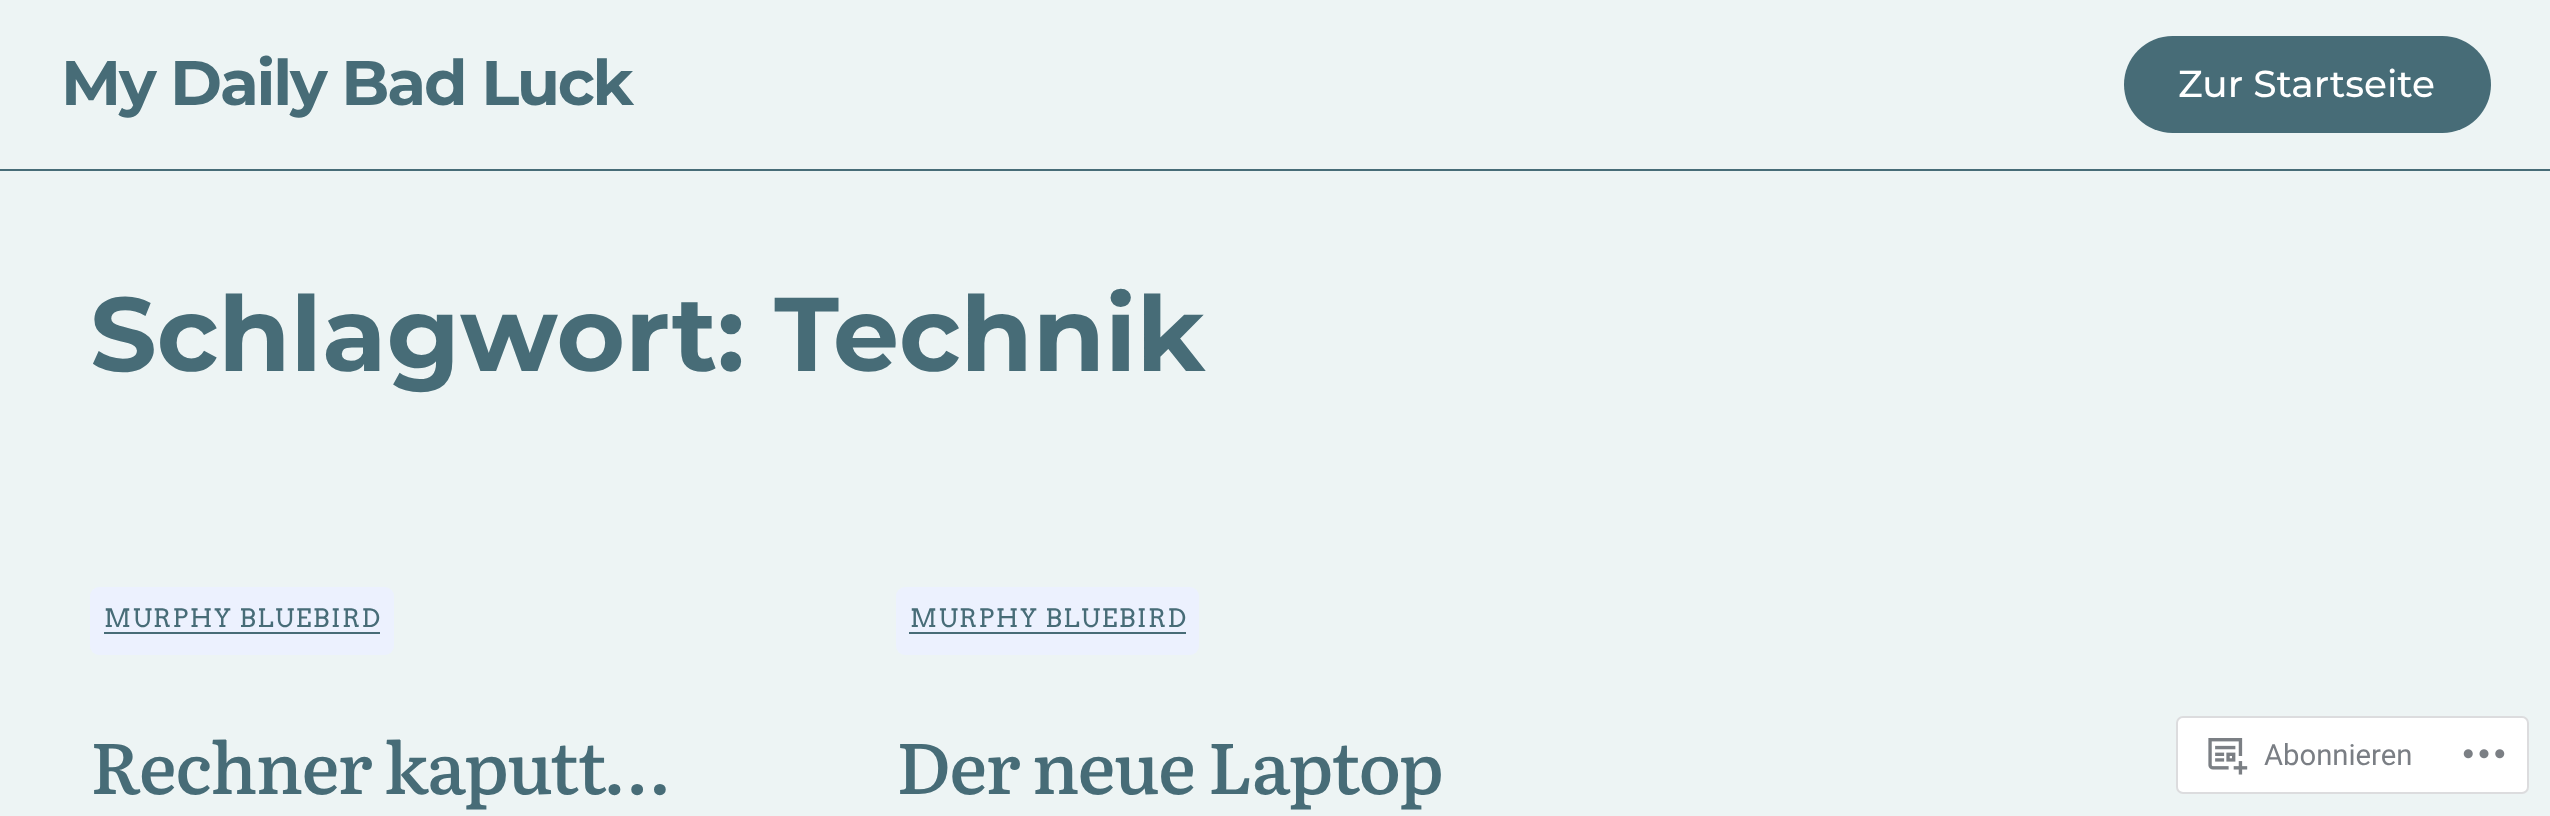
<svg xmlns="http://www.w3.org/2000/svg" width="2550" height="816" viewBox="0 0 2550 816">
  <rect width="100%" height="100%" fill="#edf4f4"/>
  <rect x="0" y="169" width="2550" height="2" fill="#476c77"/>
  <text x="61" y="105" font-family="Montserrat" font-size="63" font-weight="bold" letter-spacing="-2.2" fill="#476c77">My Daily Bad Luck</text>
  <rect x="2124" y="36" width="367" height="97" rx="48.5" fill="#476c77"/>
  <text x="2178" y="97" font-family="Montserrat" font-size="37.5" font-weight="500" fill="#ffffff">Zur Startseite</text>
  <text x="90" y="371" font-family="Montserrat" font-size="104.6" font-weight="bold" fill="#476c77">Schlagwort: Technik</text>
  <rect x="90" y="587" width="304" height="68" rx="9" fill="#ecf1fe"/>
  <text x="104" y="627" font-family="Arvo" font-size="25.25" letter-spacing="1.5" fill="#476c77">MURPHY BLUEBIRD</text>
  <rect x="104" y="632" width="276" height="2" fill="#476c77"/>
  <text x="90" y="794" font-family="Literata" font-size="71.25" font-weight="500" letter-spacing="-1.5" fill="#476c77">Rechner kaputt…</text>
  <rect x="896" y="587" width="303" height="68" rx="9" fill="#ecf1fe"/>
  <text x="910" y="627" font-family="Arvo" font-size="25.25" letter-spacing="1.5" fill="#476c77">MURPHY BLUEBIRD</text>
  <rect x="909" y="632" width="277" height="2" fill="#476c77"/>
  <text x="896" y="794" font-family="Literata" font-size="71.25" font-weight="500" letter-spacing="-1.5" fill="#476c77">Der neue Laptop</text>
  <rect x="2177" y="717" width="351" height="76" rx="6" fill="#ffffff" stroke="#dcdcde" stroke-width="2"/>
  <image x="2208" y="738" width="40" height="37" href="img1.png"/>
  <text x="2264" y="765" font-family="Roboto" font-size="29.25" fill="#7a7e84">Abonnieren</text>
  <image x="2463" y="749" width="42" height="10" href="img2.png"/>
</svg>
